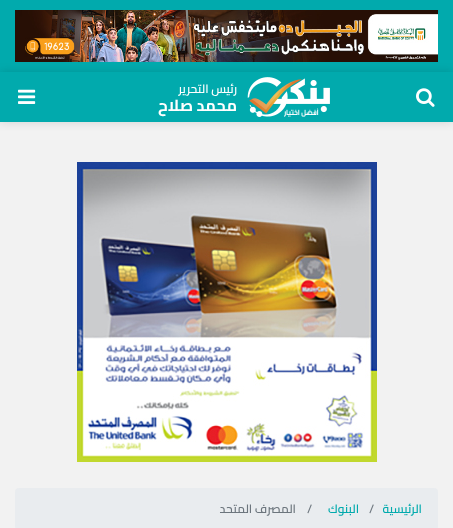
<svg xmlns="http://www.w3.org/2000/svg" width="453" height="528" viewBox="0 0 453 528">
  <defs>
    <clipPath id="clip1"><path d="M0 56H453V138H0ZM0 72H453V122H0Z" clip-rule="evenodd"/></clipPath>
    <filter id="blur1" x="-50%" y="-200%" width="200%" height="500%"><feGaussianBlur stdDeviation="5"/></filter>
  </defs>
  <rect width="100%" height="100%" fill="#f2f2f2"/>
  <rect x="0" y="0" width="453" height="122" fill="#01aaad"/>
  <image x="15" y="10" width="423" height="52" href="img1.png"/>
  <g clip-path="url(#clip1)">
    <rect x="0" y="72" width="453" height="50" fill="#000000" fill-opacity="0.14" filter="url(#blur1)"/>
  </g>
  <image x="416" y="88" width="19" height="19" href="img2.png"/>
  <image x="247" y="77" width="83" height="40" href="img3.png"/>
  <text x="237" y="93" font-family="Cairo" font-size="12" font-weight="600" direction="rtl" fill="#ffffff">رئيس التحرير</text>
  <text x="237" y="111" font-family="Cairo" font-size="16" font-weight="bold" direction="rtl" fill="#ffffff">محمد صلاح</text>
  <image x="18" y="89" width="18" height="15" href="img4.png"/>
  <image x="77" y="162" width="300" height="300" href="img5.png"/>
  <rect x="15" y="488" width="423" height="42" rx="4" fill="#e9ecef"/>
  <text x="422" y="513" font-family="Cairo" font-size="12" font-weight="600" direction="rtl" fill="#01aaad">الرئيسية</text>
  <text x="369" y="513" font-family="Cairo" font-size="12" font-weight="600" fill="#6c757d">/</text>
  <text x="359" y="513" font-family="Cairo" font-size="12" font-weight="600" direction="rtl" fill="#01aaad">البنوك</text>
  <text x="307" y="513" font-family="Cairo" font-size="12" font-weight="600" fill="#6c757d">/</text>
  <text x="296" y="513" font-family="Cairo" font-size="12" font-weight="600" direction="rtl" fill="#6c757d">المصرف المتحد</text>
</svg>
